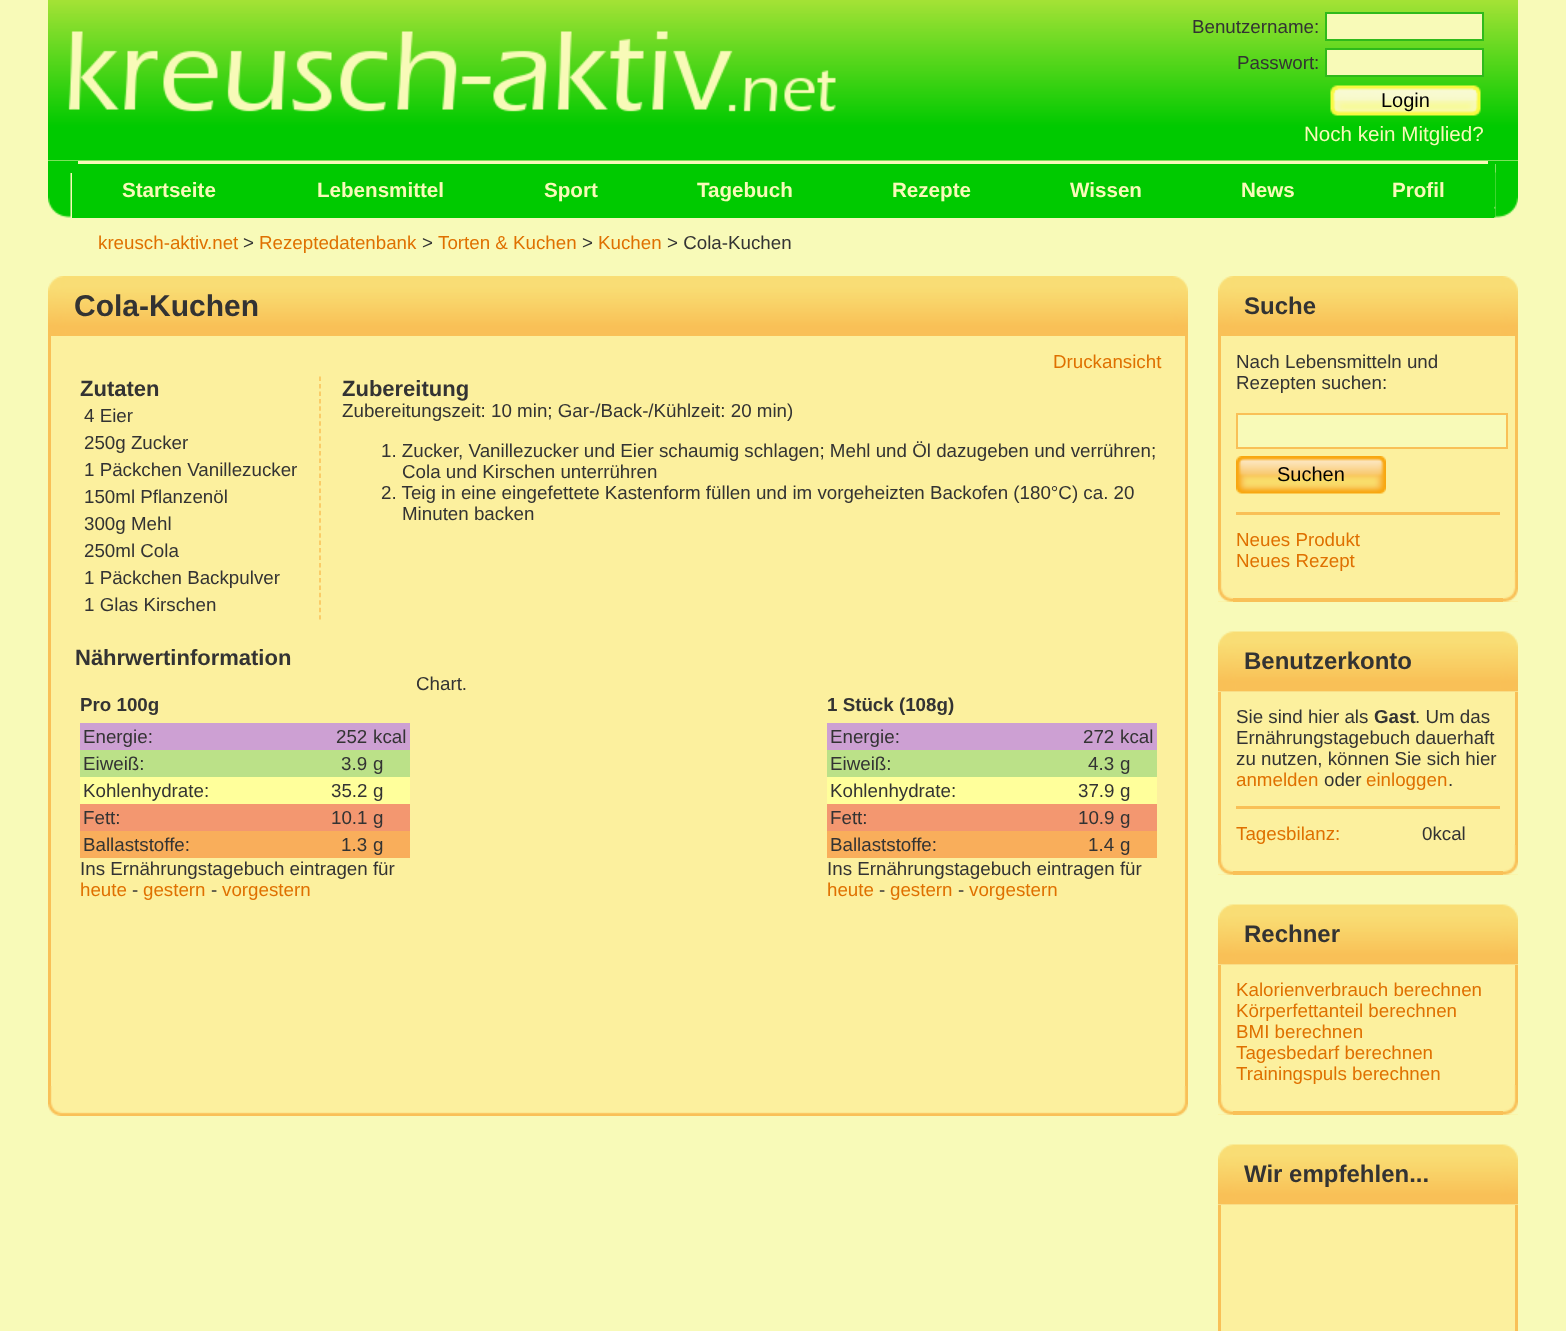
<svg xmlns="http://www.w3.org/2000/svg" width="1566" height="1331" viewBox="0 0 1566 1331">
  <rect width="100%" height="100%" fill="#f8fab8"/>
  <image x="48" y="0" width="1470" height="161" href="img1.png"/>
  <image x="68" y="30" width="768" height="82" href="img2.png"/>
  <text x="1192" y="33" font-family="Liberation Sans" font-size="18.75" fill="#333333">Benutzername:</text>
  <rect x="1326" y="13" width="157" height="27" fill="#f8fab8" stroke="#2fba1b" stroke-width="2"/>
  <text x="1237" y="69" font-family="Liberation Sans" font-size="18.75" fill="#333333">Passwort:</text>
  <rect x="1326" y="49" width="157" height="27" fill="#f8fab8" stroke="#2fba1b" stroke-width="2"/>
  <image x="1330" y="85" width="151" height="31" href="img3.png"/>
  <text x="1381" y="107" font-family="Liberation Sans" font-size="20" fill="#000000">Login</text>
  <text x="1304" y="141" font-family="Liberation Sans" font-size="20.6" fill="#f8fab8">Noch kein Mitglied?</text>
  <rect x="48" y="161" width="1470" height="3" fill="#00ca00"/>
  <rect x="78" y="161" width="1410" height="3" fill="#f8fab8"/>
  <rect x="48" y="164" width="24" height="9" fill="#00ca00"/>
  <image x="48" y="173" width="23" height="45" href="img4.png"/>
  <image x="1494" y="164" width="2" height="54" href="img5.png"/>
  <rect x="72" y="164" width="1422" height="54" fill="#00ca00"/>
  <text x="122" y="197" font-family="Liberation Sans" font-size="20.6" font-weight="bold" fill="#f8fab8">Startseite</text>
  <text x="317" y="197" font-family="Liberation Sans" font-size="20.6" font-weight="bold" fill="#f8fab8">Lebensmittel</text>
  <text x="544" y="197" font-family="Liberation Sans" font-size="20.6" font-weight="bold" fill="#f8fab8">Sport</text>
  <text x="697" y="197" font-family="Liberation Sans" font-size="20.6" font-weight="bold" fill="#f8fab8">Tagebuch</text>
  <text x="892" y="197" font-family="Liberation Sans" font-size="20.6" font-weight="bold" fill="#f8fab8">Rezepte</text>
  <text x="1070" y="197" font-family="Liberation Sans" font-size="20.6" font-weight="bold" fill="#f8fab8">Wissen</text>
  <text x="1241" y="197" font-family="Liberation Sans" font-size="20.6" font-weight="bold" fill="#f8fab8">News</text>
  <text x="1392" y="197" font-family="Liberation Sans" font-size="20.6" font-weight="bold" fill="#f8fab8">Profil</text>
  <rect x="1496" y="164" width="22" height="9" fill="#00ca00"/>
  <image x="1495" y="172" width="23" height="46" href="img6.png"/>
  <text x="98" y="249" font-family="Liberation Sans" font-size="18.75" fill="#df7000">kreusch-aktiv.net</text>
  <text x="243" y="249" font-family="Liberation Sans" font-size="18.75" fill="#333333">&gt;</text>
  <text x="259" y="249" font-family="Liberation Sans" font-size="18.75" fill="#df7000">Rezeptedatenbank</text>
  <text x="422" y="249" font-family="Liberation Sans" font-size="18.75" fill="#333333">&gt;</text>
  <text x="438" y="249" font-family="Liberation Sans" font-size="18.75" fill="#df7000">Torten &amp; Kuchen</text>
  <text x="582" y="249" font-family="Liberation Sans" font-size="18.75" fill="#333333">&gt;</text>
  <text x="598" y="249" font-family="Liberation Sans" font-size="18.75" fill="#df7000">Kuchen</text>
  <text x="667" y="249" font-family="Liberation Sans" font-size="18.75" fill="#333333">&gt; Cola-Kuchen</text>
  <image x="48" y="276" width="18" height="60" href="img7.png"/>
  <image x="66" y="276" width="1104" height="60" href="img8.png"/>
  <text x="74" y="316" font-family="Liberation Sans" font-size="30" font-weight="bold" fill="#333333">Cola-Kuchen</text>
  <image x="1170" y="276" width="18" height="60" href="img9.png"/>
  <rect x="51" y="336" width="1134" height="750" fill="#fcf09e"/>
  <rect x="1185" y="336" width="3" height="750" fill="#f9c057"/>
  <rect x="48" y="336" width="3" height="750" fill="#f9c057"/>
  <text x="1053" y="368" font-family="Liberation Sans" font-size="18.75" fill="#df7000">Druckansicht</text>
  <path d="M320 376.5V619.5" fill="none" stroke="#f9c057" stroke-width="1.5" stroke-dasharray="4.5 2.96"/>
  <text x="80" y="396" font-family="Liberation Sans" font-size="22" font-weight="bold" fill="#333333">Zutaten</text>
  <text x="84" y="422" font-family="Liberation Sans" font-size="18.75" fill="#333333">4 Eier</text>
  <text x="84" y="449" font-family="Liberation Sans" font-size="18.75" fill="#333333">250g Zucker</text>
  <text x="84" y="476" font-family="Liberation Sans" font-size="18.75" fill="#333333">1 Päckchen Vanillezucker</text>
  <text x="84" y="503" font-family="Liberation Sans" font-size="18.75" fill="#333333">150ml Pflanzenöl</text>
  <text x="84" y="530" font-family="Liberation Sans" font-size="18.75" fill="#333333">300g Mehl</text>
  <text x="84" y="557" font-family="Liberation Sans" font-size="18.75" fill="#333333">250ml Cola</text>
  <text x="84" y="584" font-family="Liberation Sans" font-size="18.75" fill="#333333">1 Päckchen Backpulver</text>
  <text x="84" y="611" font-family="Liberation Sans" font-size="18.75" fill="#333333">1 Glas Kirschen</text>
  <text x="342" y="396" font-family="Liberation Sans" font-size="22" font-weight="bold" fill="#333333">Zubereitung</text>
  <text x="342" y="417" font-family="Liberation Sans" font-size="18.75" fill="#333333">Zubereitungszeit: 10 min; Gar-/Back-/Kühlzeit: 20 min)</text>
  <text x="381" y="457" font-family="Liberation Sans" font-size="18.75" fill="#333333">1. Zucker, Vanillezucker und Eier schaumig schlagen; Mehl und Öl dazugeben und verrühren;</text>
  <text x="402" y="478" font-family="Liberation Sans" font-size="18.75" fill="#333333">Cola und Kirschen unterrühren</text>
  <text x="381" y="499" font-family="Liberation Sans" font-size="18.75" fill="#333333">2. Teig in eine eingefettete Kastenform füllen und im vorgeheizten Backofen (180°C) ca. 20</text>
  <text x="402" y="520" font-family="Liberation Sans" font-size="18.75" fill="#333333">Minuten backen</text>
  <text x="75" y="665" font-family="Liberation Sans" font-size="22" font-weight="bold" fill="#333333">Nährwertinformation</text>
  <text x="416" y="690" font-family="Liberation Sans" font-size="18.75" fill="#333333">Chart.</text>
  <text x="80" y="711" font-family="Liberation Sans" font-size="18.75" font-weight="bold" fill="#333333">Pro 100g</text>
  <rect x="80" y="723" width="330" height="27" fill="#cda0d3"/>
  <text x="83" y="743" font-family="Liberation Sans" font-size="18.75" fill="#333333">Energie:</text>
  <text x="336" y="743" font-family="Liberation Sans" font-size="18.75" fill="#333333">252</text>
  <text x="373" y="743" font-family="Liberation Sans" font-size="18.75" fill="#333333">kcal</text>
  <rect x="80" y="750" width="330" height="27" fill="#bbe188"/>
  <text x="83" y="770" font-family="Liberation Sans" font-size="18.75" fill="#333333">Eiweiß:</text>
  <text x="341" y="770" font-family="Liberation Sans" font-size="18.75" fill="#333333">3.9</text>
  <text x="373" y="770" font-family="Liberation Sans" font-size="18.75" fill="#333333">g</text>
  <rect x="80" y="777" width="330" height="27" fill="#ffff9b"/>
  <text x="83" y="797" font-family="Liberation Sans" font-size="18.75" fill="#333333">Kohlenhydrate:</text>
  <text x="331" y="797" font-family="Liberation Sans" font-size="18.75" fill="#333333">35.2</text>
  <text x="373" y="797" font-family="Liberation Sans" font-size="18.75" fill="#333333">g</text>
  <rect x="80" y="804" width="330" height="27" fill="#f39770"/>
  <text x="83" y="824" font-family="Liberation Sans" font-size="18.75" fill="#333333">Fett:</text>
  <text x="331" y="824" font-family="Liberation Sans" font-size="18.75" fill="#333333">10.1</text>
  <text x="373" y="824" font-family="Liberation Sans" font-size="18.75" fill="#333333">g</text>
  <rect x="80" y="831" width="330" height="27" fill="#f9ae5b"/>
  <text x="83" y="851" font-family="Liberation Sans" font-size="18.75" fill="#333333">Ballaststoffe:</text>
  <text x="341" y="851" font-family="Liberation Sans" font-size="18.75" fill="#333333">1.3</text>
  <text x="373" y="851" font-family="Liberation Sans" font-size="18.75" fill="#333333">g</text>
  <text x="80" y="875" font-family="Liberation Sans" font-size="18.75" fill="#333333">Ins Ernährungstagebuch eintragen für</text>
  <text x="80" y="896" font-family="Liberation Sans" font-size="18.75" fill="#df7000">heute</text>
  <text x="132" y="896" font-family="Liberation Sans" font-size="18.75" fill="#333333">-</text>
  <text x="143" y="896" font-family="Liberation Sans" font-size="18.75" fill="#df7000">gestern</text>
  <text x="211" y="896" font-family="Liberation Sans" font-size="18.75" fill="#333333">-</text>
  <text x="222" y="896" font-family="Liberation Sans" font-size="18.75" fill="#df7000">vorgestern</text>
  <text x="827" y="711" font-family="Liberation Sans" font-size="18.75" font-weight="bold" fill="#333333">1 Stück (108g)</text>
  <rect x="827" y="723" width="330" height="27" fill="#cda0d3"/>
  <text x="830" y="743" font-family="Liberation Sans" font-size="18.75" fill="#333333">Energie:</text>
  <text x="1083" y="743" font-family="Liberation Sans" font-size="18.75" fill="#333333">272</text>
  <text x="1120" y="743" font-family="Liberation Sans" font-size="18.75" fill="#333333">kcal</text>
  <rect x="827" y="750" width="330" height="27" fill="#bbe188"/>
  <text x="830" y="770" font-family="Liberation Sans" font-size="18.75" fill="#333333">Eiweiß:</text>
  <text x="1088" y="770" font-family="Liberation Sans" font-size="18.75" fill="#333333">4.3</text>
  <text x="1120" y="770" font-family="Liberation Sans" font-size="18.75" fill="#333333">g</text>
  <rect x="827" y="777" width="330" height="27" fill="#ffff9b"/>
  <text x="830" y="797" font-family="Liberation Sans" font-size="18.75" fill="#333333">Kohlenhydrate:</text>
  <text x="1078" y="797" font-family="Liberation Sans" font-size="18.75" fill="#333333">37.9</text>
  <text x="1120" y="797" font-family="Liberation Sans" font-size="18.75" fill="#333333">g</text>
  <rect x="827" y="804" width="330" height="27" fill="#f39770"/>
  <text x="830" y="824" font-family="Liberation Sans" font-size="18.75" fill="#333333">Fett:</text>
  <text x="1078" y="824" font-family="Liberation Sans" font-size="18.75" fill="#333333">10.9</text>
  <text x="1120" y="824" font-family="Liberation Sans" font-size="18.75" fill="#333333">g</text>
  <rect x="827" y="831" width="330" height="27" fill="#f9ae5b"/>
  <text x="830" y="851" font-family="Liberation Sans" font-size="18.75" fill="#333333">Ballaststoffe:</text>
  <text x="1088" y="851" font-family="Liberation Sans" font-size="18.75" fill="#333333">1.4</text>
  <text x="1120" y="851" font-family="Liberation Sans" font-size="18.75" fill="#333333">g</text>
  <text x="827" y="875" font-family="Liberation Sans" font-size="18.75" fill="#333333">Ins Ernährungstagebuch eintragen für</text>
  <text x="827" y="896" font-family="Liberation Sans" font-size="18.75" fill="#df7000">heute</text>
  <text x="879" y="896" font-family="Liberation Sans" font-size="18.75" fill="#333333">-</text>
  <text x="890" y="896" font-family="Liberation Sans" font-size="18.75" fill="#df7000">gestern</text>
  <text x="958" y="896" font-family="Liberation Sans" font-size="18.75" fill="#333333">-</text>
  <text x="969" y="896" font-family="Liberation Sans" font-size="18.75" fill="#df7000">vorgestern</text>
  <rect x="50" y="1086" width="13" height="30" fill="#fcf09e"/>
  <image x="48" y="1086" width="15" height="30" href="img10.png"/>
  <rect x="63" y="1086" width="1110" height="28" fill="#fcf09e"/>
  <image x="63" y="1112" width="1110" height="4" href="img11.png"/>
  <rect x="1173" y="1086" width="13" height="30" fill="#fcf09e"/>
  <image x="1173" y="1086" width="15" height="30" href="img12.png"/>
  <image x="1218" y="276" width="18" height="60" href="img13.png"/>
  <image x="1236" y="276" width="264" height="60" href="img14.png"/>
  <text x="1244" y="314" font-family="Liberation Sans" font-size="24" font-weight="bold" fill="#333333">Suche</text>
  <image x="1500" y="276" width="18" height="60" href="img9.png"/>
  <rect x="1221" y="336" width="294" height="236" fill="#fcf09e"/>
  <rect x="1515" y="336" width="3" height="236" fill="#f9c057"/>
  <rect x="1218" y="336" width="3" height="236" fill="#f9c057"/>
  <text x="1236" y="368" font-family="Liberation Sans" font-size="18.75" fill="#333333">Nach Lebensmitteln und</text>
  <text x="1236" y="389" font-family="Liberation Sans" font-size="18.75" fill="#333333">Rezepten suchen:</text>
  <rect x="1237" y="414" width="270" height="34" fill="#f8fab8" stroke="#f9c057" stroke-width="2"/>
  <image x="1236" y="456" width="150" height="38" href="img15.png"/>
  <text x="1277" y="481" font-family="Liberation Sans" font-size="20" fill="#000000">Suchen</text>
  <rect x="1236" y="512" width="264" height="3" fill="#f9c057"/>
  <text x="1236" y="546" font-family="Liberation Sans" font-size="18.75" fill="#df7000">Neues Produkt</text>
  <text x="1236" y="567" font-family="Liberation Sans" font-size="18.75" fill="#df7000">Neues Rezept</text>
  <rect x="1218" y="572" width="15" height="30" fill="#fcf09e"/>
  <image x="1218" y="571" width="15" height="31" href="img16.png"/>
  <rect x="1233" y="572" width="270" height="26" fill="#fcf09e"/>
  <rect x="1233" y="598" width="270" height="4" fill="#f9c057"/>
  <rect x="1503" y="572" width="15" height="30" fill="#fcf09e"/>
  <image x="1503" y="571" width="15" height="31" href="img17.png"/>
  <image x="1218" y="631" width="18" height="61" href="img18.png"/>
  <image x="1236" y="631" width="264" height="61" href="img19.png"/>
  <text x="1244" y="669" font-family="Liberation Sans" font-size="24" font-weight="bold" fill="#333333">Benutzerkonto</text>
  <image x="1500" y="631" width="18" height="61" href="img20.png"/>
  <rect x="1221" y="692" width="294" height="153" fill="#fcf09e"/>
  <rect x="1515" y="692" width="3" height="153" fill="#f9c057"/>
  <rect x="1218" y="692" width="3" height="153" fill="#f9c057"/>
  <text x="1236" y="723" font-family="Liberation Sans" font-size="18.75" fill="#333333">Sie sind hier als</text>
  <text x="1374" y="723" font-family="Liberation Sans" font-size="18.75" font-weight="bold" fill="#333333">Gast</text>
  <text x="1415" y="723" font-family="Liberation Sans" font-size="18.75" fill="#333333">. Um das</text>
  <text x="1236" y="744" font-family="Liberation Sans" font-size="18.75" fill="#333333">Ernährungstagebuch dauerhaft</text>
  <text x="1236" y="765" font-family="Liberation Sans" font-size="18.75" fill="#333333">zu nutzen, können Sie sich hier</text>
  <text x="1236" y="786" font-family="Liberation Sans" font-size="18.75" fill="#df7000">anmelden</text>
  <text x="1324" y="786" font-family="Liberation Sans" font-size="18.75" fill="#333333">oder</text>
  <text x="1366" y="786" font-family="Liberation Sans" font-size="18.75" fill="#df7000">einloggen</text>
  <text x="1448" y="786" font-family="Liberation Sans" font-size="18.75" fill="#333333">.</text>
  <rect x="1236" y="806" width="264" height="3" fill="#f9c057"/>
  <text x="1236" y="840" font-family="Liberation Sans" font-size="18.75" fill="#df7000">Tagesbilanz:</text>
  <text x="1422" y="840" font-family="Liberation Sans" font-size="18.75" fill="#333333">0kcal</text>
  <rect x="1218" y="845" width="15" height="30" fill="#fcf09e"/>
  <image x="1218" y="844" width="15" height="31" href="img16.png"/>
  <rect x="1233" y="845" width="270" height="26" fill="#fcf09e"/>
  <rect x="1233" y="871" width="270" height="4" fill="#f9c057"/>
  <rect x="1503" y="845" width="15" height="30" fill="#fcf09e"/>
  <image x="1503" y="844" width="15" height="31" href="img17.png"/>
  <image x="1218" y="904" width="18" height="61" href="img18.png"/>
  <image x="1236" y="904" width="264" height="61" href="img19.png"/>
  <text x="1244" y="942" font-family="Liberation Sans" font-size="24" font-weight="bold" fill="#333333">Rechner</text>
  <image x="1500" y="904" width="18" height="61" href="img20.png"/>
  <rect x="1221" y="965" width="294" height="120" fill="#fcf09e"/>
  <rect x="1515" y="965" width="3" height="120" fill="#f9c057"/>
  <rect x="1218" y="965" width="3" height="120" fill="#f9c057"/>
  <text x="1236" y="996" font-family="Liberation Sans" font-size="18.75" fill="#df7000">Kalorienverbrauch berechnen</text>
  <text x="1236" y="1017" font-family="Liberation Sans" font-size="18.75" fill="#df7000">Körperfettanteil berechnen</text>
  <text x="1236" y="1038" font-family="Liberation Sans" font-size="18.75" fill="#df7000">BMI berechnen</text>
  <text x="1236" y="1059" font-family="Liberation Sans" font-size="18.75" fill="#df7000">Tagesbedarf berechnen</text>
  <text x="1236" y="1080" font-family="Liberation Sans" font-size="18.75" fill="#df7000">Trainingspuls berechnen</text>
  <rect x="1218" y="1085" width="15" height="30" fill="#fcf09e"/>
  <image x="1218" y="1084" width="15" height="31" href="img16.png"/>
  <rect x="1233" y="1085" width="270" height="26" fill="#fcf09e"/>
  <rect x="1233" y="1111" width="270" height="4" fill="#f9c057"/>
  <rect x="1503" y="1085" width="15" height="30" fill="#fcf09e"/>
  <image x="1503" y="1084" width="15" height="31" href="img17.png"/>
  <image x="1218" y="1144" width="18" height="61" href="img18.png"/>
  <image x="1236" y="1144" width="264" height="61" href="img19.png"/>
  <text x="1244" y="1182" font-family="Liberation Sans" font-size="24" font-weight="bold" fill="#333333">Wir empfehlen...</text>
  <image x="1500" y="1144" width="18" height="61" href="img20.png"/>
  <rect x="1221" y="1205" width="294" height="126" fill="#fcf09e"/>
  <rect x="1515" y="1205" width="3" height="126" fill="#f9c057"/>
  <rect x="1218" y="1205" width="3" height="126" fill="#f9c057"/>
</svg>
